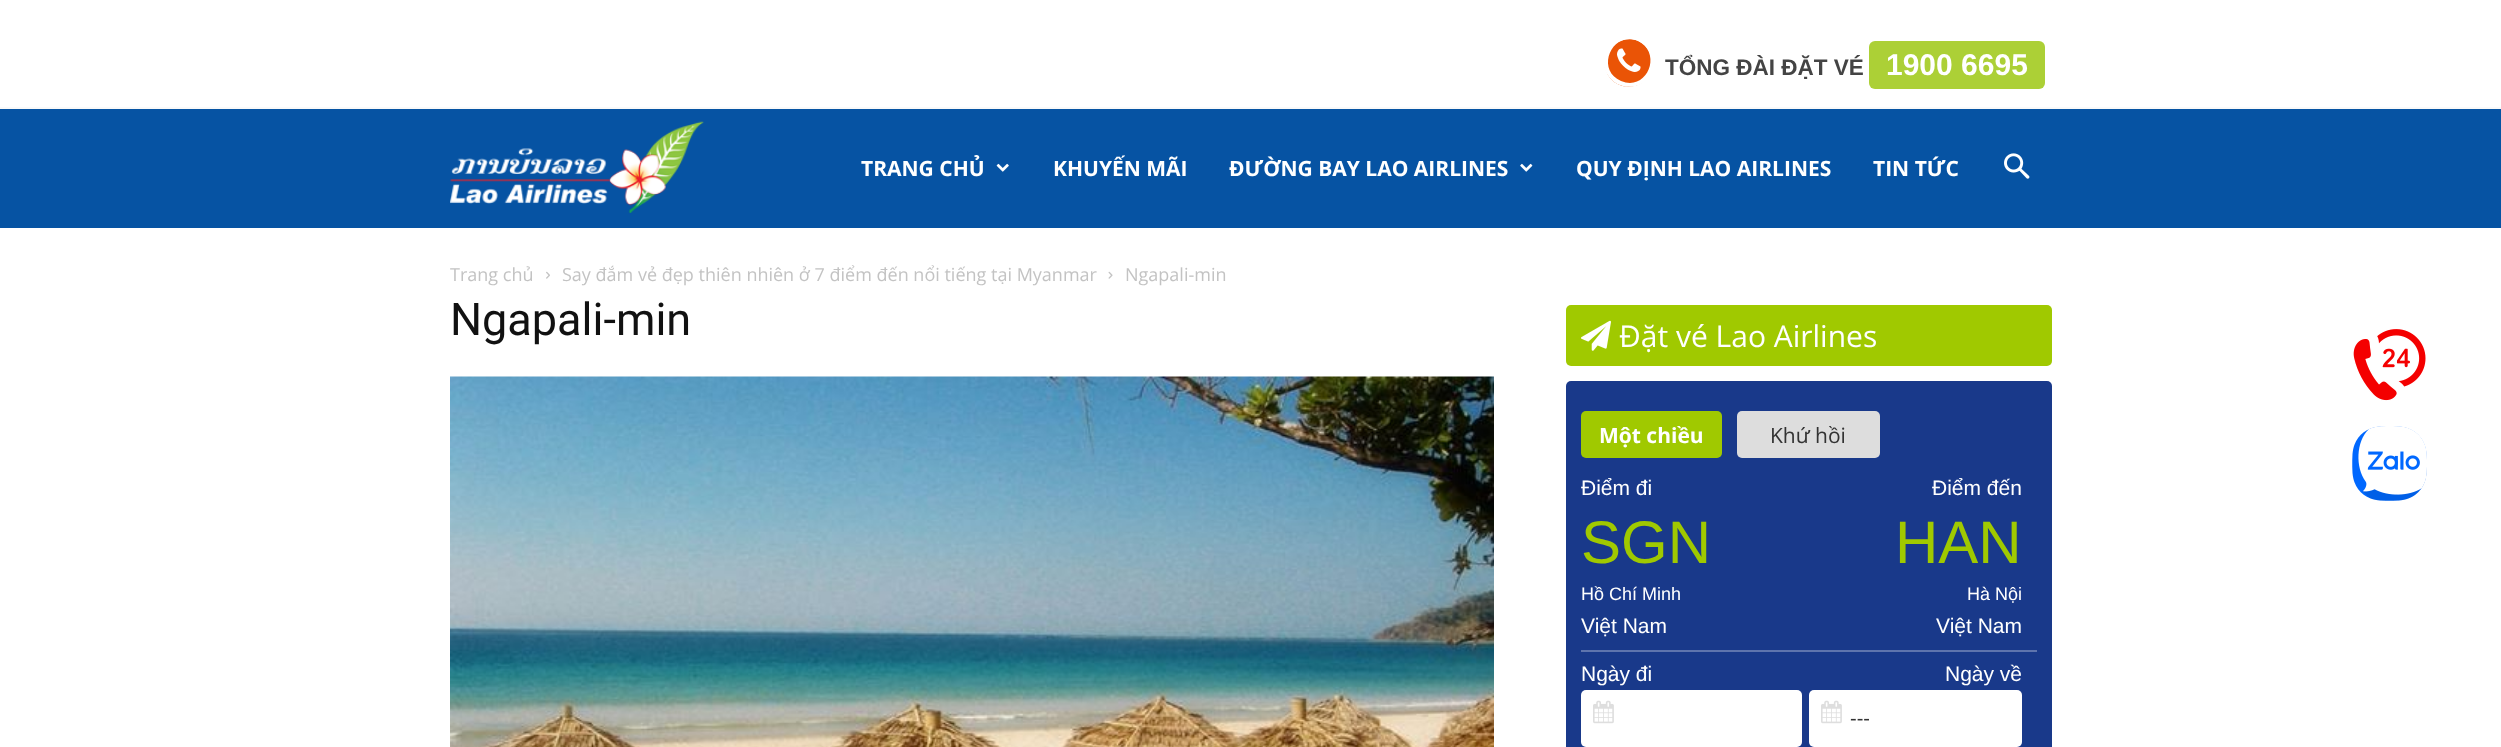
<svg xmlns="http://www.w3.org/2000/svg" width="2501" height="747" viewBox="0 0 2501 747">
  <rect width="100%" height="100%" fill="#ffffff"/>
  <path d="M1649 51C1652 55 1653 60 1653 64C1651 88 1620 95 1608 75C1592 48 1634 24 1649 51Z" fill="#ea5406"/>
  <path d="M1638 41C1612 30 1595 70 1621 81C1647 92 1663 53 1638 41ZM1651 48C1654 53 1655 58 1655 63C1653 88 1620 96 1607 74C1604 70 1603 64 1604 59C1605 34 1639 26 1651 48Z" fill="#ffffff"/>
  <image x="1617" y="48" width="24" height="24" href="img1.png"/>
  <text x="1665" y="75" font-family="Liberation Sans" font-size="22.5" font-weight="bold" fill="#444444">TỔNG ĐÀI ĐẶT VÉ</text>
  <rect x="1869" y="41" width="176" height="48" rx="6" fill="#acd036"/>
  <text x="1886" y="75" font-family="Liberation Sans" font-size="30" font-weight="bold" fill="#ffffff">1900 6695</text>
  <rect x="0" y="107" width="2501" height="2" fill="#f9f9f9"/>
  <rect x="0" y="109" width="2501" height="119" fill="#0653a3"/>
  <image x="450" y="121" width="254" height="92" href="img2.png"/>
  <text x="861" y="176" font-family="Open Sans" font-size="21" font-weight="bold" fill="#ffffff">TRANG CHỦ</text>
  <image x="996" y="163" width="13" height="9" href="img3.png"/>
  <text x="1053" y="176" font-family="Open Sans" font-size="21" font-weight="bold" fill="#ffffff">KHUYẾN MÃI</text>
  <text x="1229" y="176" font-family="Open Sans" font-size="21" font-weight="bold" fill="#ffffff">ĐƯỜNG BAY LAO AIRLINES</text>
  <image x="1520" y="163" width="13" height="9" href="img4.png"/>
  <text x="1576" y="176" font-family="Open Sans" font-size="21" font-weight="bold" fill="#ffffff">QUY ĐỊNH LAO AIRLINES</text>
  <text x="1873" y="176" font-family="Open Sans" font-size="21" font-weight="bold" fill="#ffffff">TIN TỨC</text>
  <image x="2004" y="153" width="26" height="26" href="img5.png"/>
  <text x="450" y="281" font-family="Open Sans" font-size="18" fill="#c3c3c3">Trang chủ</text>
  <image x="546" y="271" width="4" height="8" href="img6.png"/>
  <text x="562" y="281" font-family="Open Sans" font-size="18" fill="#c3c3c3">Say đắm vẻ đẹp thiên nhiên ở 7 điểm đến nổi tiếng tại Myanmar</text>
  <image x="1108" y="271" width="5" height="8" href="img7.png"/>
  <text x="1125" y="281" font-family="Open Sans" font-size="18" fill="#c3c3c3">Ngapali-min</text>
  <text x="450" y="335" font-family="Roboto" font-size="45" fill="#111111">Ngapali-min</text>
  <image x="450" y="376" width="1044" height="371" href="img8.png"/>
  <rect x="1566" y="305" width="486" height="61" rx="5" fill="#a0c900"/>
  <image x="1581" y="320" width="30" height="31" href="img9.png"/>
  <text x="1619" y="347" font-family="Open Sans" font-size="30" fill="#ffffff">Đặt vé Lao Airlines</text>
  <rect x="1566" y="381" width="486" height="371" rx="5" fill="#19398a"/>
  <rect x="1581" y="411" width="141" height="47" rx="5" fill="#a0c900"/>
  <text x="1599" y="443" font-family="Open Sans" font-size="21" font-weight="bold" fill="#ffffff">Một chiều</text>
  <rect x="1737" y="411" width="143" height="47" rx="5" fill="#dddddd"/>
  <text x="1770" y="443" font-family="Open Sans" font-size="21" fill="#333333">Khứ hồi</text>
  <rect x="1581" y="650" width="456" height="2" fill="#5e74ad"/>
  <text x="1581" y="495" font-family="Liberation Sans" font-size="21" fill="#ffffff">Điểm đi</text>
  <text x="1932" y="495" font-family="Liberation Sans" font-size="21" fill="#ffffff">Điểm đến</text>
  <text x="1581" y="563" font-family="Liberation Sans" font-size="60" fill="#a0c900">SGN</text>
  <text x="1581" y="600" font-family="Liberation Sans" font-size="18" fill="#ffffff">Hồ Chí Minh</text>
  <text x="1581" y="633" font-family="Liberation Sans" font-size="21" fill="#ffffff">Việt Nam</text>
  <text x="1895" y="563" font-family="Liberation Sans" font-size="60" fill="#a0c900">HAN</text>
  <text x="1967" y="600" font-family="Liberation Sans" font-size="18" fill="#ffffff">Hà Nội</text>
  <text x="1936" y="633" font-family="Liberation Sans" font-size="21" fill="#ffffff">Việt Nam</text>
  <text x="1581" y="681" font-family="Liberation Sans" font-size="21" fill="#ffffff">Ngày đi</text>
  <text x="1945" y="681" font-family="Liberation Sans" font-size="21" fill="#ffffff">Ngày về</text>
  <rect x="1581" y="690" width="221" height="57" rx="5" fill="#ffffff"/>
  <image x="1593" y="700" width="21" height="24" href="img10.png"/>
  <rect x="1809" y="690" width="213" height="57" rx="5" fill="#ffffff"/>
  <image x="1821" y="700" width="21" height="24" href="img10.png"/>
  <text x="1850" y="725" font-family="Liberation Sans" font-size="20" fill="#333333">---</text>
  <image x="2353" y="329" width="73" height="72" href="img11.png"/>
  <image x="2352" y="426" width="75" height="75" href="img12.png"/>
</svg>
